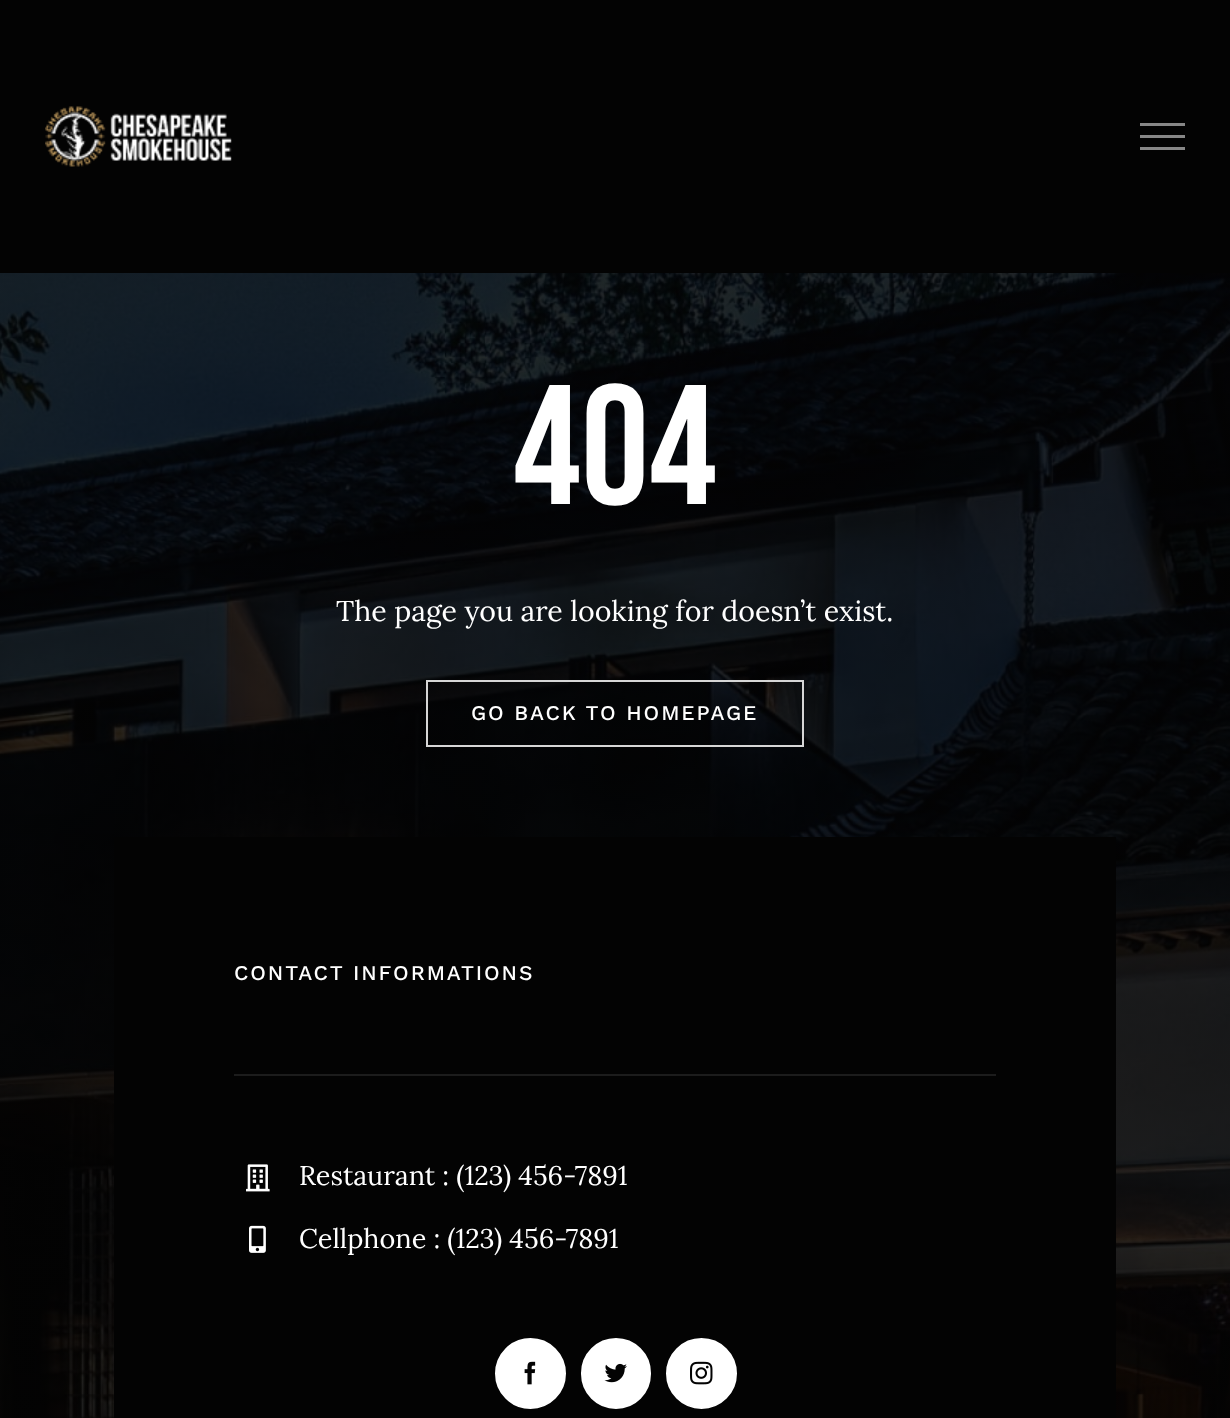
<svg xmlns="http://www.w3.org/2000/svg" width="1230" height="1418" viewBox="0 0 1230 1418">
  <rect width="100%" height="100%" fill="#ffffff"/>
  <rect x="0" y="0" width="1230" height="273" fill="#030303"/>
  <image x="45" y="106" width="187" height="61" href="img1.png"/>
  <rect x="1140" y="123" width="45" height="3" fill="#878787"/>
  <rect x="1140" y="135" width="45" height="3" fill="#878787"/>
  <rect x="1140" y="147" width="45" height="3" fill="#878787"/>
  <image x="0" y="273" width="1230" height="1145" href="img2.png"/>
  <text x="513" y="504" font-family="Bebas Neue" font-size="170" fill="#ffffff">404</text>
  <text x="336" y="621" font-family="Lora" font-size="28.5" fill="#ffffff">The page you are looking for doesn’t exist.</text>
  <rect x="427" y="681" width="376" height="65" fill="none" stroke="#d6d6d6" stroke-width="2"/>
  <text x="471" y="720" font-family="Work Sans" font-size="21" font-weight="500" letter-spacing="1.9" fill="#ffffff">GO BACK TO HOMEPAGE</text>
  <rect x="114" y="837" width="1002" height="581" fill="#030303"/>
  <text x="234" y="980" font-family="Work Sans" font-size="21" font-weight="500" letter-spacing="1.9" fill="#ffffff">CONTACT INFORMATIONS</text>
  <rect x="234" y="1074" width="762" height="2" fill="#1c1c1c"/>
  <image x="246" y="1164" width="24" height="28" href="img3.png"/>
  <text x="299" y="1185" font-family="Lora" font-size="27" fill="#ffffff">Restaurant : (123) 456-7891</text>
  <image x="249" y="1225" width="17" height="28" href="img4.png"/>
  <text x="299" y="1248" font-family="Lora" font-size="27" fill="#ffffff">Cellphone : (123) 456-7891</text>
  <circle cx="530.5" cy="1373.5" r="34.5" fill="#ffffff" stroke="#ffffff" stroke-width="2"/>
  <image x="524" y="1361" width="12" height="24" href="img5.png"/>
  <rect x="582" y="1339" width="68" height="69" rx="34" fill="#ffffff" stroke="#ffffff" stroke-width="2"/>
  <image x="604" y="1363" width="23" height="20" href="img6.png"/>
  <circle cx="701.5" cy="1373.5" r="34.5" fill="#ffffff" stroke="#ffffff" stroke-width="2"/>
  <image x="690" y="1361" width="23" height="24" href="img7.png"/>
</svg>
